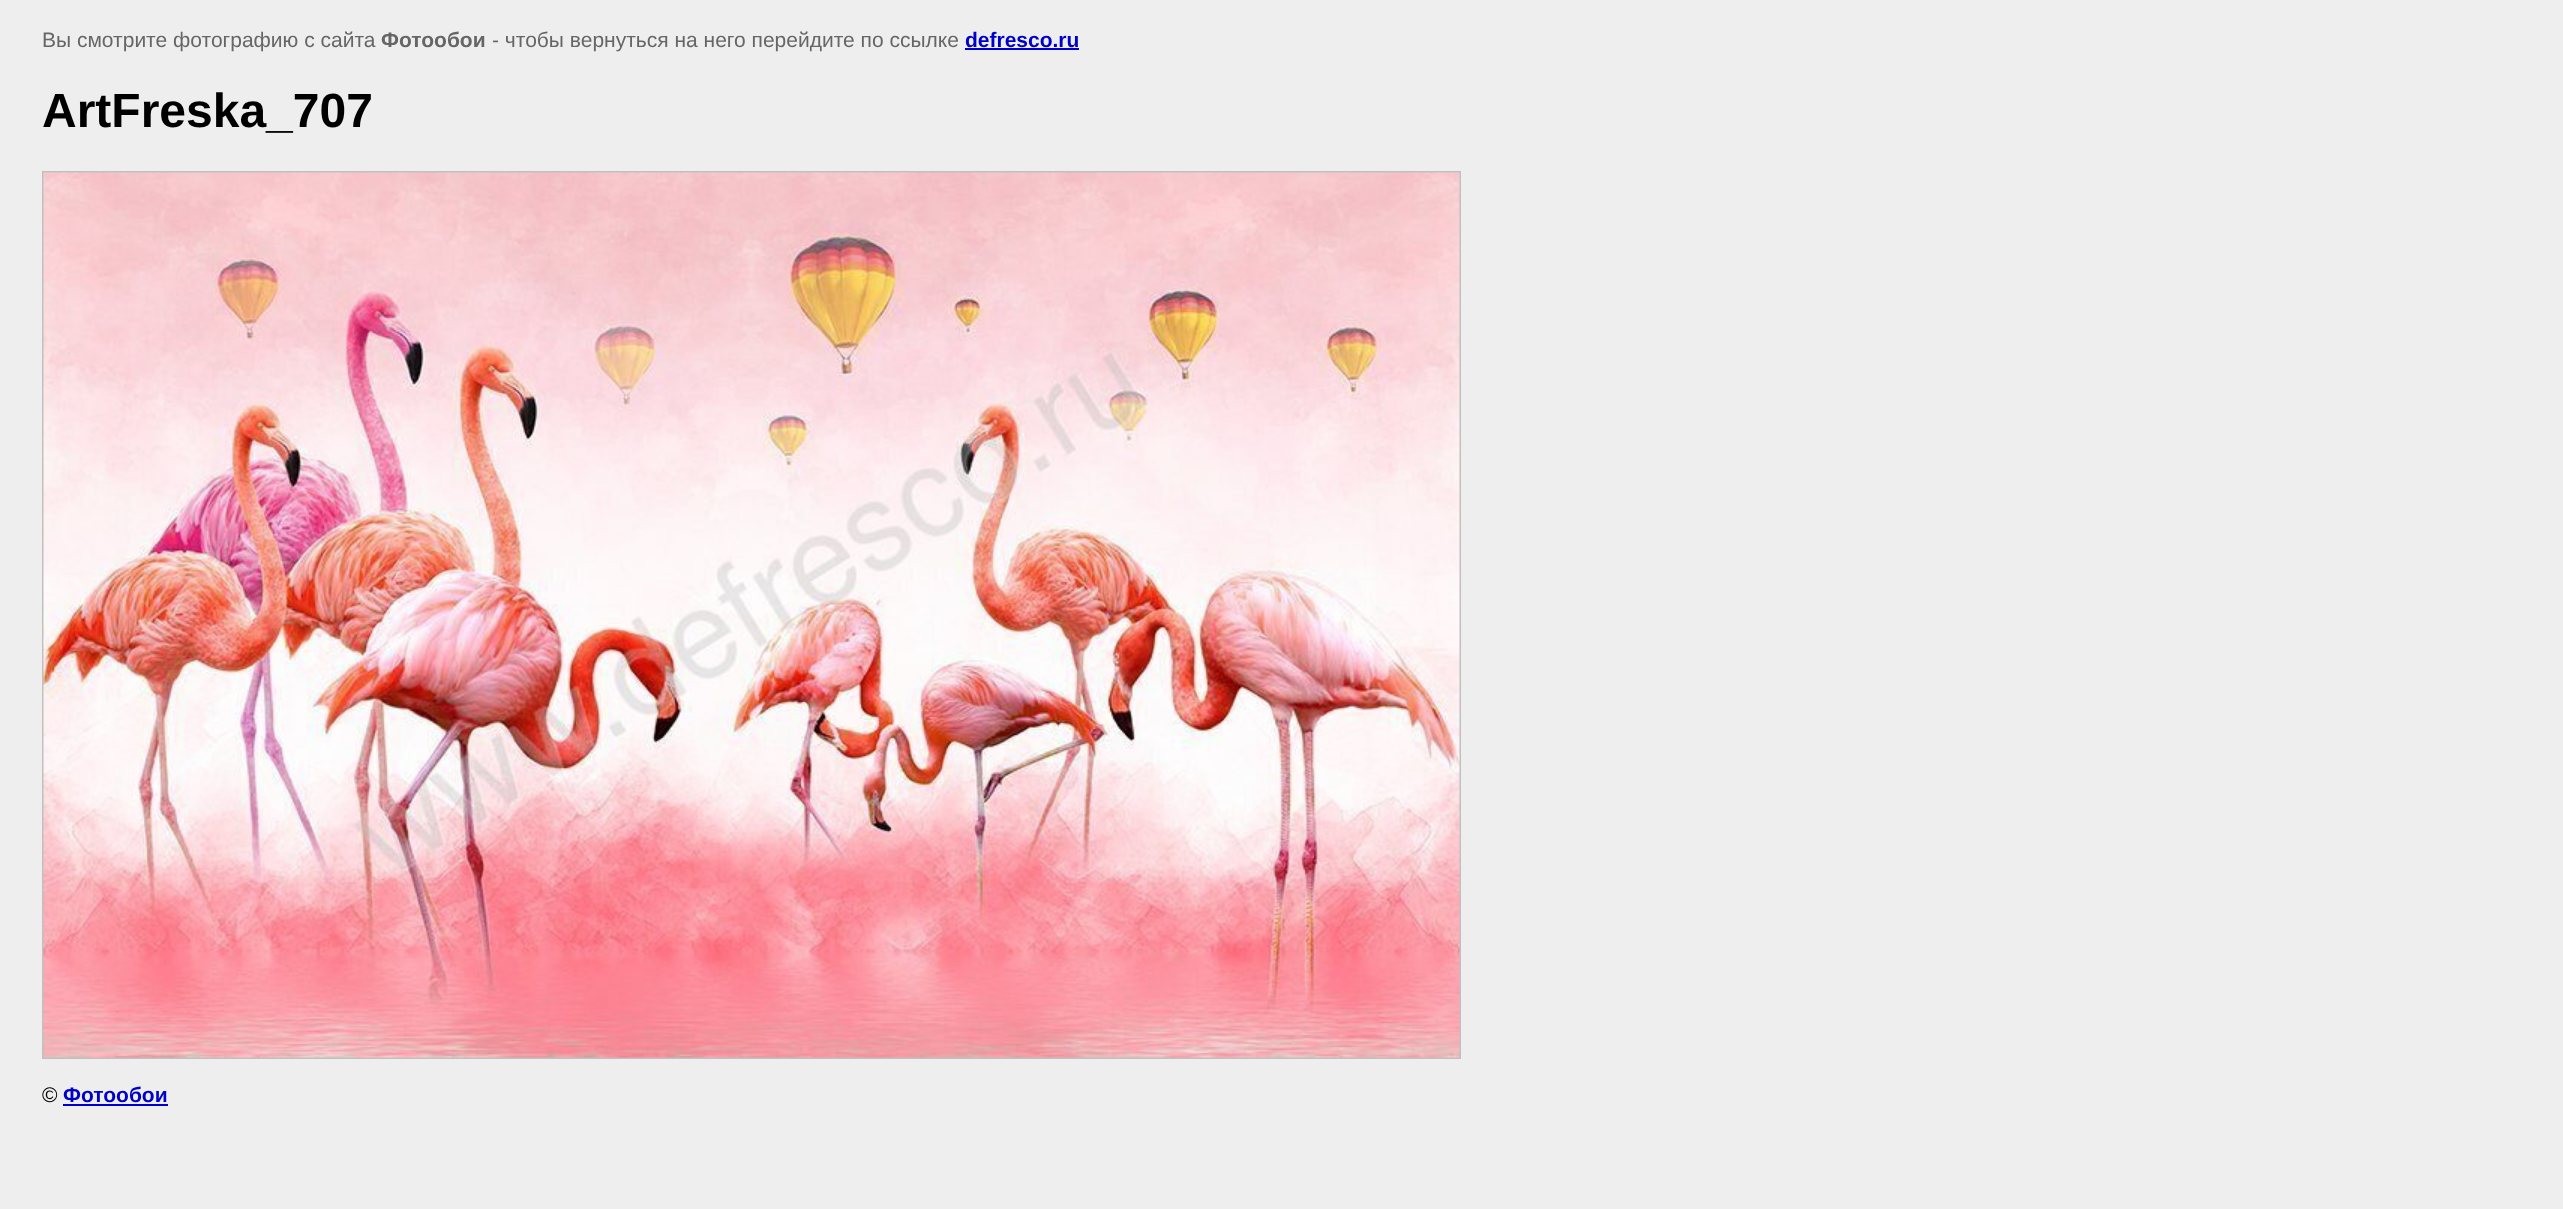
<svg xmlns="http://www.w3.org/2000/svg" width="2563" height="1209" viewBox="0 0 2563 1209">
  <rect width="100%" height="100%" fill="#eeeeee"/>
  <text x="42" y="47" font-family="Liberation Sans" font-size="21" fill="#666666">Вы смотрите фотографию с сайта</text>
  <text x="381" y="47" font-family="Liberation Sans" font-size="21" font-weight="bold" fill="#666666">Фотообои</text>
  <text x="492" y="47" font-family="Liberation Sans" font-size="21" fill="#666666">- чтобы вернуться на него перейдите по ссылке</text>
  <text x="965" y="47" font-family="Liberation Sans" font-size="21" font-weight="bold" fill="#0000cc">defresco.ru</text>
  <rect x="965" y="48" width="114" height="2" fill="#0000cc"/>
  <text x="42" y="127" font-family="Liberation Sans" font-size="48" font-weight="bold" fill="#000000">ArtFreska_707</text>
  <rect x="43" y="172" width="1417" height="886" fill="none" stroke="#c0c0c0" stroke-width="2"/>
  <image x="43" y="172" width="1417" height="886" href="img1.png"/>
  <text x="42" y="1102" font-family="Liberation Sans" font-size="21" fill="#000000">©</text>
  <text x="63" y="1102" font-family="Liberation Sans" font-size="21" font-weight="bold" fill="#0000cc">Фотообои</text>
  <rect x="63" y="1104" width="105" height="2" fill="#0000cc"/>
</svg>
